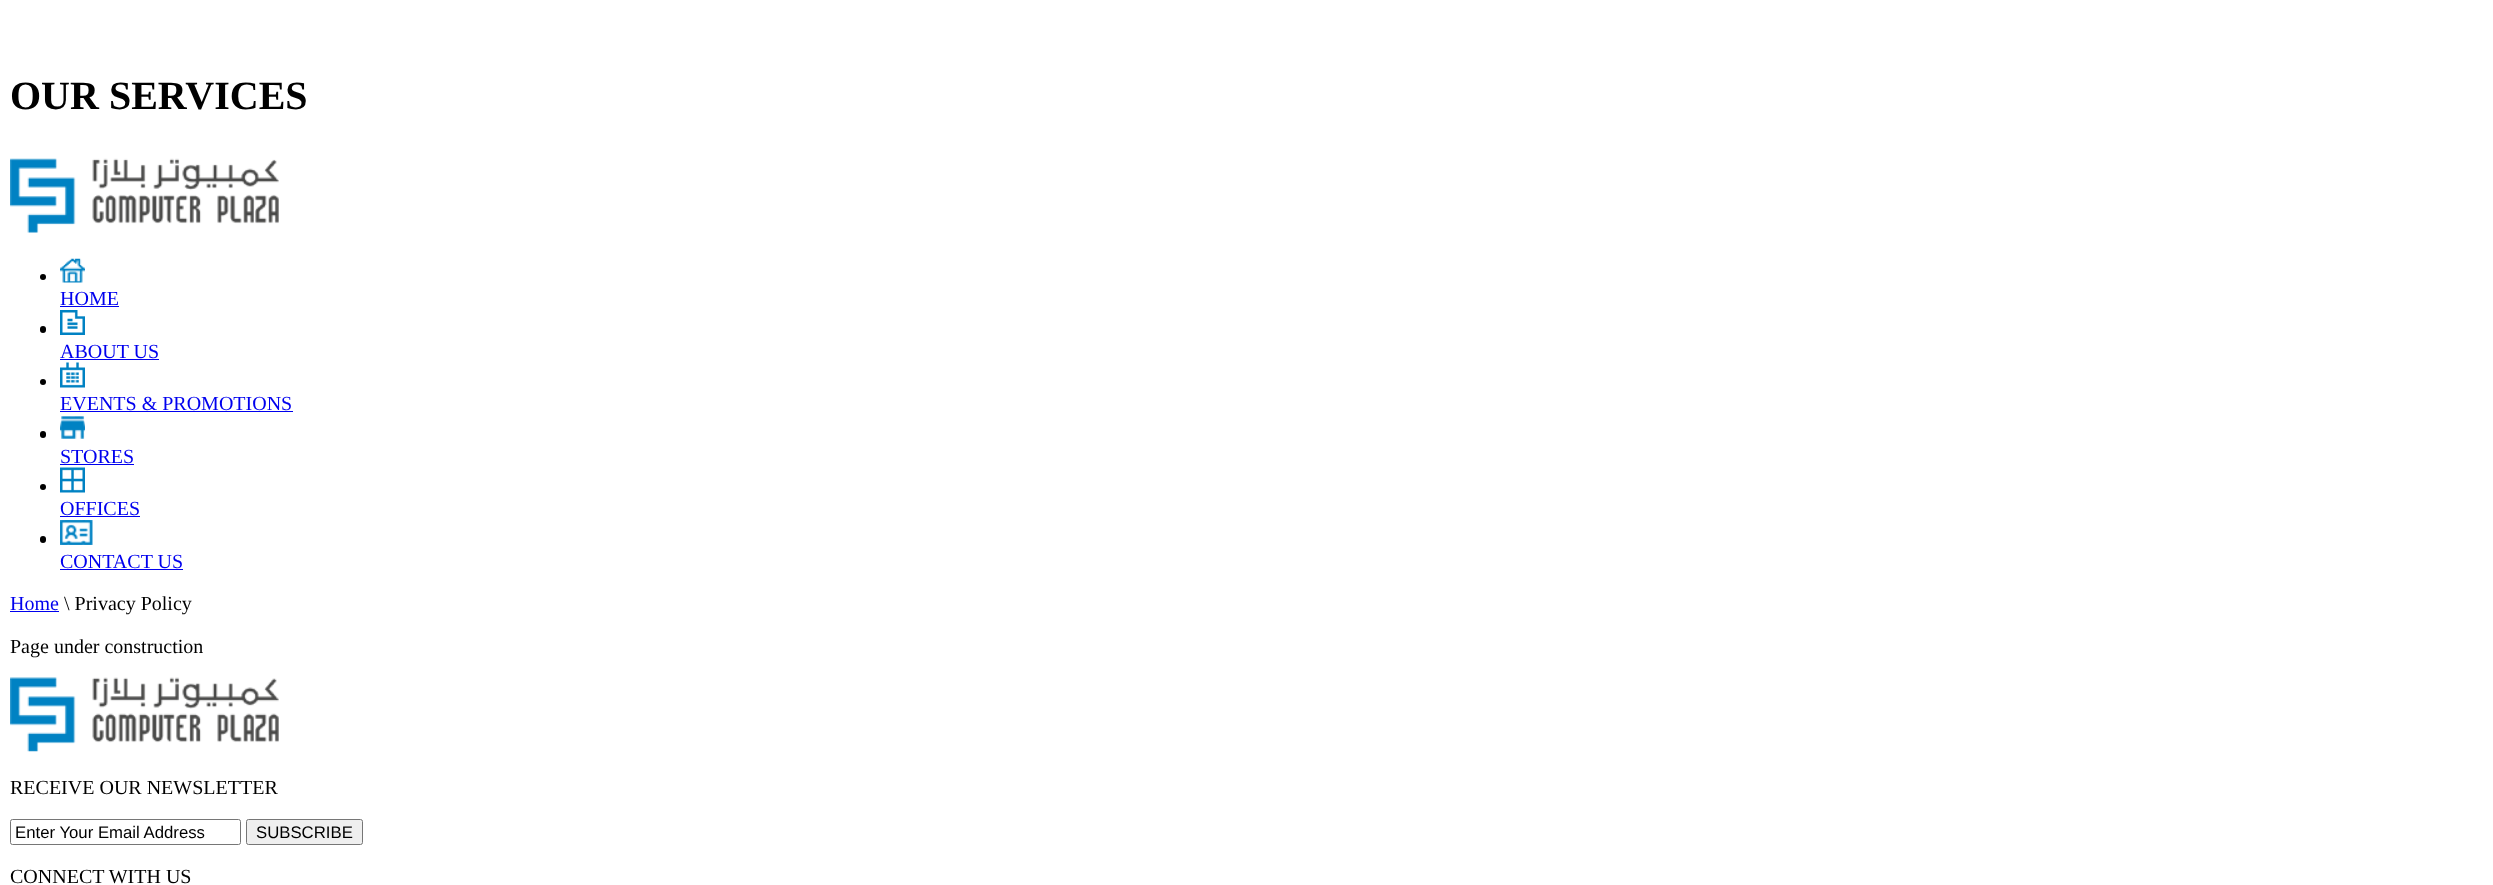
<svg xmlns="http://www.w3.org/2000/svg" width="2493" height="885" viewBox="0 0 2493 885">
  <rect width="100%" height="100%" fill="#ffffff"/>
  <text x="10" y="109" font-family="Liberation Serif" font-size="40" font-weight="bold" fill="#000000">OUR SERVICES</text>
  <image x="10" y="158" width="269" height="75" href="img1.png"/>
  <circle cx="43" cy="277" r="3" fill="#000000"/>
  <image x="60" y="258" width="25" height="25" href="img2.png"/>
  <text x="60" y="305" font-family="Liberation Serif" font-size="20" fill="#0000ee">HOME</text>
  <rect x="60" y="306" width="59" height="1" fill="#0000ee"/>
  <rect x="40" y="326" width="6" height="7" rx="3" fill="#000000"/>
  <image x="60" y="310" width="25" height="25" href="img3.png"/>
  <text x="60" y="358" font-family="Liberation Serif" font-size="20" fill="#0000ee">ABOUT US</text>
  <rect x="60" y="359" width="99" height="1" fill="#0000ee"/>
  <circle cx="43" cy="382" r="3" fill="#000000"/>
  <image x="60" y="362" width="25" height="26" href="img4.png"/>
  <text x="60" y="410" font-family="Liberation Serif" font-size="20" fill="#0000ee">EVENTS &amp; PROMOTIONS</text>
  <rect x="60" y="411" width="233" height="1" fill="#0000ee"/>
  <rect x="40" y="431" width="6" height="7" rx="3" fill="#000000"/>
  <image x="60" y="416" width="25" height="23" href="img5.png"/>
  <text x="60" y="463" font-family="Liberation Serif" font-size="20" fill="#0000ee">STORES</text>
  <rect x="60" y="464" width="74" height="1" fill="#0000ee"/>
  <circle cx="43" cy="487" r="3" fill="#000000"/>
  <image x="60" y="467" width="25" height="26" href="img6.png"/>
  <text x="60" y="515" font-family="Liberation Serif" font-size="20" fill="#0000ee">OFFICES</text>
  <rect x="60" y="516" width="80" height="1" fill="#0000ee"/>
  <rect x="40" y="536" width="6" height="7" rx="3" fill="#000000"/>
  <image x="60" y="520" width="33" height="25" href="img7.png"/>
  <text x="60" y="568" font-family="Liberation Serif" font-size="20" fill="#0000ee">CONTACT US</text>
  <rect x="60" y="569" width="123" height="1" fill="#0000ee"/>
  <text x="10" y="610" font-family="Liberation Serif" font-size="20" fill="#0000ee">Home</text>
  <rect x="10" y="611" width="49" height="1" fill="#0000ee"/>
  <text x="64" y="610" font-family="Liberation Serif" font-size="20" fill="#000000">\ Privacy Policy</text>
  <text x="10" y="653" font-family="Liberation Serif" font-size="20" fill="#000000">Page under construction</text>
  <image x="10" y="677" width="269" height="75" href="img8.png"/>
  <text x="10" y="794" font-family="Liberation Serif" font-size="20" fill="#000000">RECEIVE OUR NEWSLETTER</text>
  <rect x="10.5" y="819.5" width="230" height="25" rx="2" fill="none" stroke="#767676"/>
  <text x="15" y="838" font-family="Liberation Sans" font-size="16.75" fill="#000000">Enter Your Email Address</text>
  <rect x="246.5" y="819.5" width="116" height="25" rx="2" fill="#efefef" stroke="#767676"/>
  <text x="256" y="838" font-family="Liberation Sans" font-size="16.75" fill="#000000">SUBSCRIBE</text>
  <text x="10" y="883" font-family="Liberation Serif" font-size="20" fill="#000000">CONNECT WITH US</text>
</svg>
